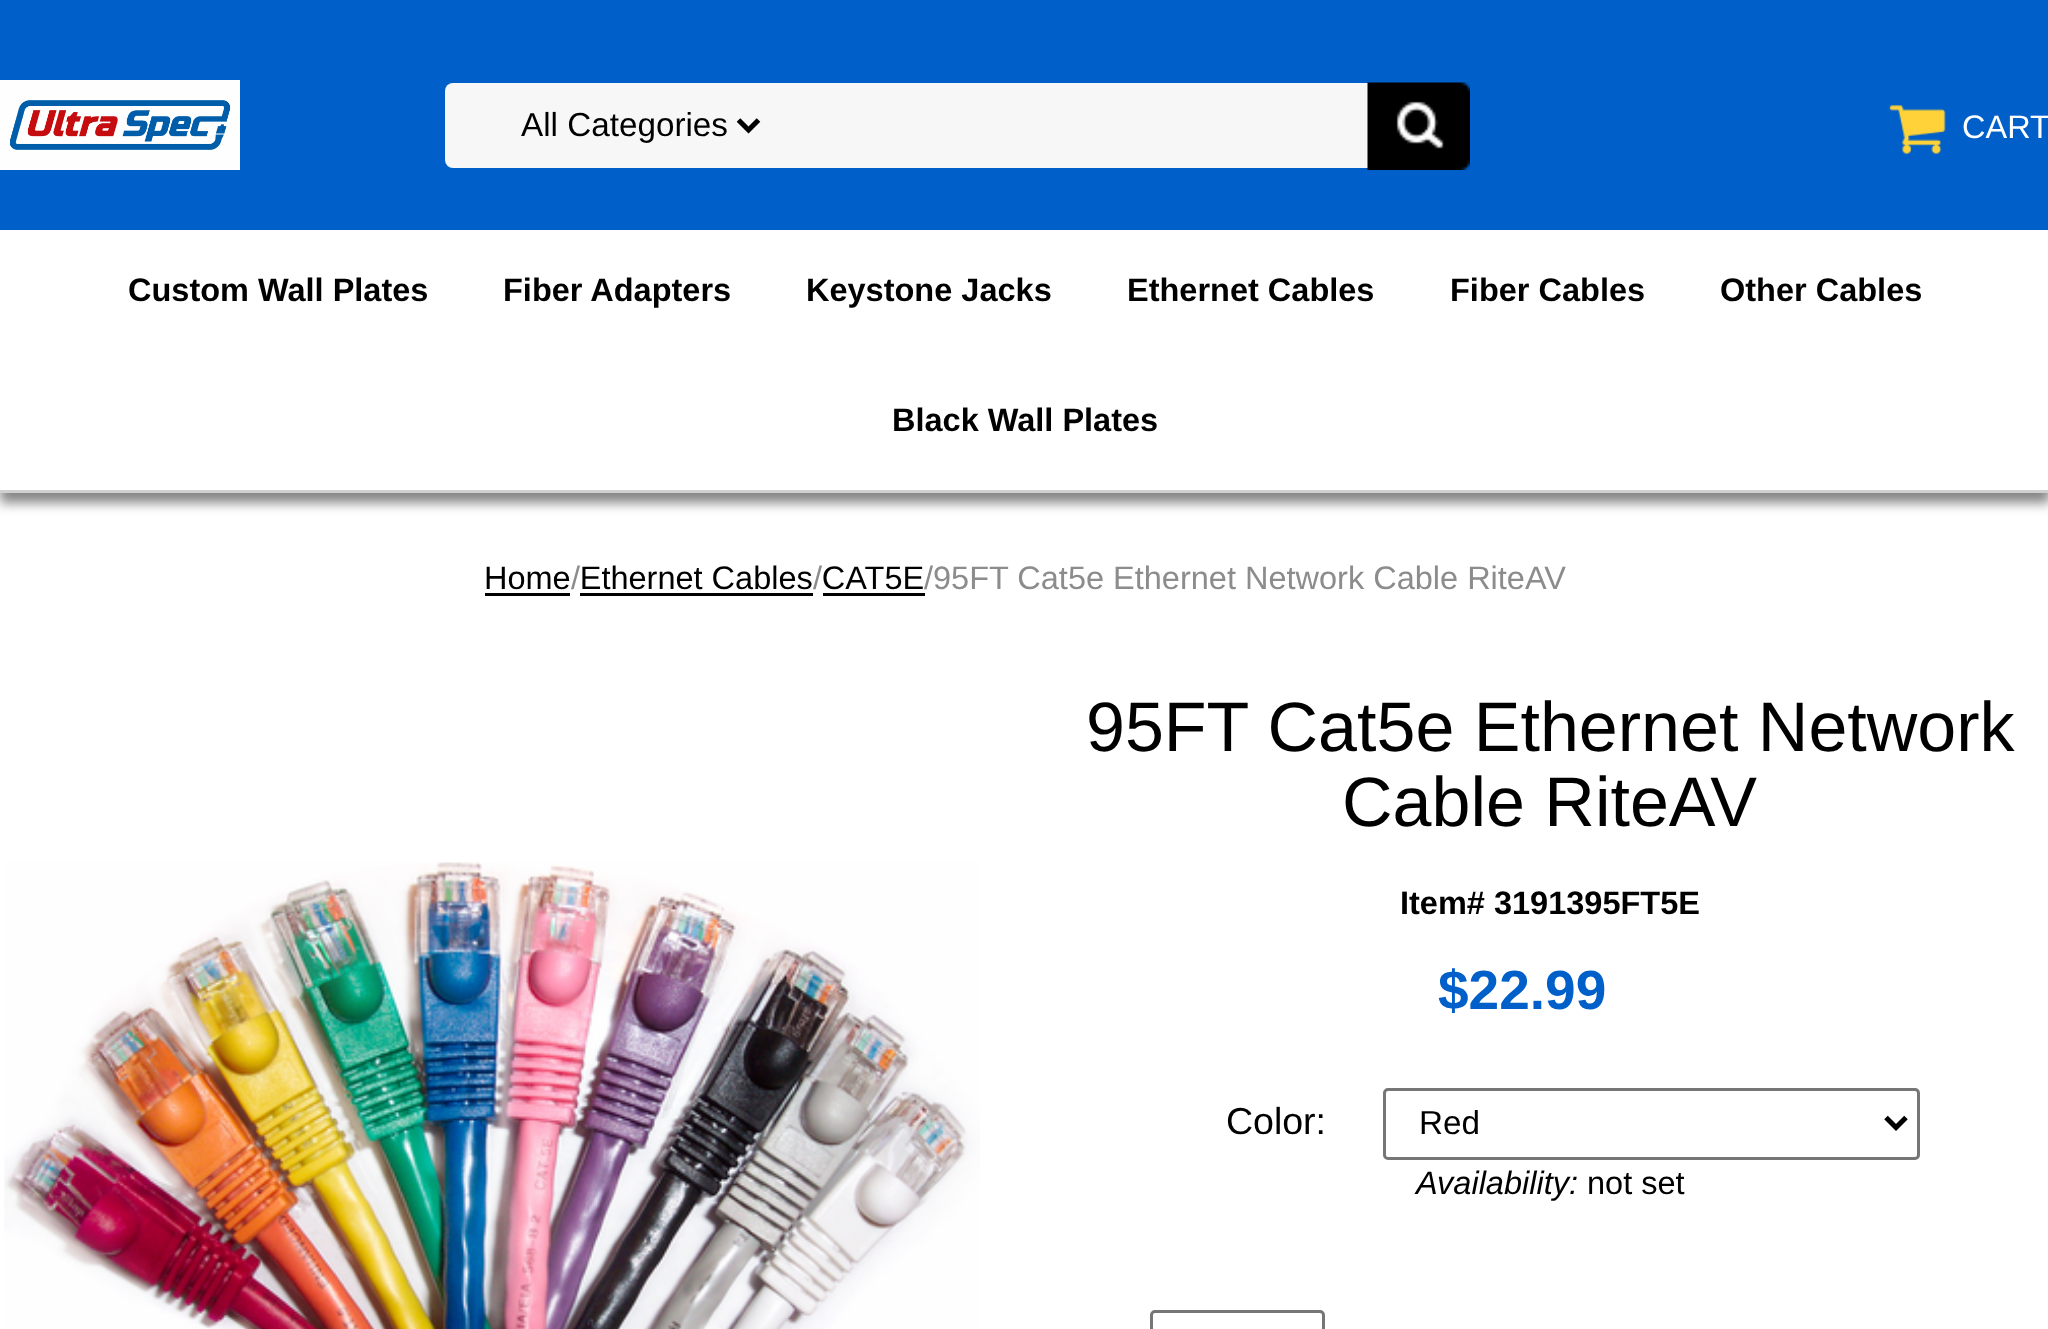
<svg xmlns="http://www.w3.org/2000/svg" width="2048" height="1329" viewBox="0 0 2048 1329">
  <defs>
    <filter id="blur1" x="-50%" y="-200%" width="200%" height="500%"><feGaussianBlur stdDeviation="6"/></filter>
  </defs>
  <rect width="100%" height="100%" fill="#ffffff"/>
  <rect x="0" y="0" width="2048" height="230" fill="#005fc9"/>
  <image x="0" y="80" width="240" height="90" href="img1.png"/>
  <rect x="445" y="83" width="1025" height="85" rx="8" fill="#f7f7f7"/>
  <path d="M738.5 120L748.5 130L758.5 120" fill="none" stroke="#000000" stroke-width="5"/>
  <text x="521" y="136" font-family="Liberation Sans" font-size="33.25" fill="#000000">All Categories</text>
  <image x="1367" y="82" width="103" height="88" href="img2.png"/>
  <image x="1889" y="105" width="57" height="49" href="img3.png"/>
  <text x="1962" y="138" font-family="Liberation Sans" font-size="32.5" fill="#ffffff">CART</text>
  <rect x="0" y="240" width="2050" height="263" fill="#000000" fill-opacity="0.48" filter="url(#blur1)"/>
  <rect x="0" y="230" width="2048" height="260" fill="#ffffff"/>
  <rect x="0" y="490" width="2048" height="3" fill="#d0d0d0"/>
  <text x="128" y="301" font-family="Liberation Sans" font-size="32.5" font-weight="bold" fill="#000000">Custom Wall Plates</text>
  <text x="503" y="301" font-family="Liberation Sans" font-size="32.5" font-weight="bold" fill="#000000">Fiber Adapters</text>
  <text x="806" y="301" font-family="Liberation Sans" font-size="32.5" font-weight="bold" fill="#000000">Keystone Jacks</text>
  <text x="1127" y="301" font-family="Liberation Sans" font-size="32.5" font-weight="bold" fill="#000000">Ethernet Cables</text>
  <text x="1450" y="301" font-family="Liberation Sans" font-size="32.5" font-weight="bold" fill="#000000">Fiber Cables</text>
  <text x="1720" y="301" font-family="Liberation Sans" font-size="32.5" font-weight="bold" fill="#000000">Other Cables</text>
  <text x="892" y="431" font-family="Liberation Sans" font-size="32.5" font-weight="bold" fill="#000000">Black Wall Plates</text>
  <text x="484" y="589" font-family="Liberation Sans" font-size="32.5" fill="#000000">Home Ethernet Cables CAT5E</text>
  <rect x="485" y="593" width="85" height="3" fill="#000000"/>
  <text x="571" y="589" font-family="Liberation Sans" font-size="32.5" fill="#8c8c8c">/</text>
  <text x="813" y="589" font-family="Liberation Sans" font-size="32.5" fill="#8c8c8c">/</text>
  <text x="924" y="589" font-family="Liberation Sans" font-size="32.5" fill="#8c8c8c">/95FT Cat5e Ethernet Network Cable RiteAV</text>
  <rect x="580" y="593" width="233" height="3" fill="#000000"/>
  <rect x="823" y="593" width="102" height="3" fill="#000000"/>
  <image x="4" y="862" width="976" height="467" href="img4.png"/>
  <text x="1086" y="751" font-family="Liberation Sans" font-size="70" fill="#000000">95FT Cat5e Ethernet Network</text>
  <text x="1342" y="826" font-family="Liberation Sans" font-size="70" fill="#000000">Cable RiteAV</text>
  <text x="1400" y="914" font-family="Liberation Sans" font-size="32.5" font-weight="bold" fill="#000000">Item# 3191395FT5E</text>
  <text x="1438" y="1009" font-family="Liberation Sans" font-size="55" font-weight="bold" fill="#005fc9">$22.99</text>
  <text x="1226" y="1134" font-family="Liberation Sans" font-size="37.5" fill="#000000">Color:</text>
  <rect x="1384.5" y="1089.5" width="534" height="69" rx="3.5" fill="none" stroke="#767676" stroke-width="3"/>
  <path d="M1886 1117.5L1896 1127.5L1906 1117.5" fill="none" stroke="#000000" stroke-width="5"/>
  <text x="1419" y="1134" font-family="Liberation Sans" font-size="33.25" fill="#000000">Red</text>
  <text x="1416" y="1194" font-family="Liberation Sans" font-size="32.5" font-style="italic" fill="#000000">Availability:</text>
  <text x="1587" y="1194" font-family="Liberation Sans" font-size="32.5" fill="#000000">not set</text>
  <rect x="1151.5" y="1311.5" width="172" height="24" rx="3.5" fill="none" stroke="#767676" stroke-width="3"/>
</svg>
